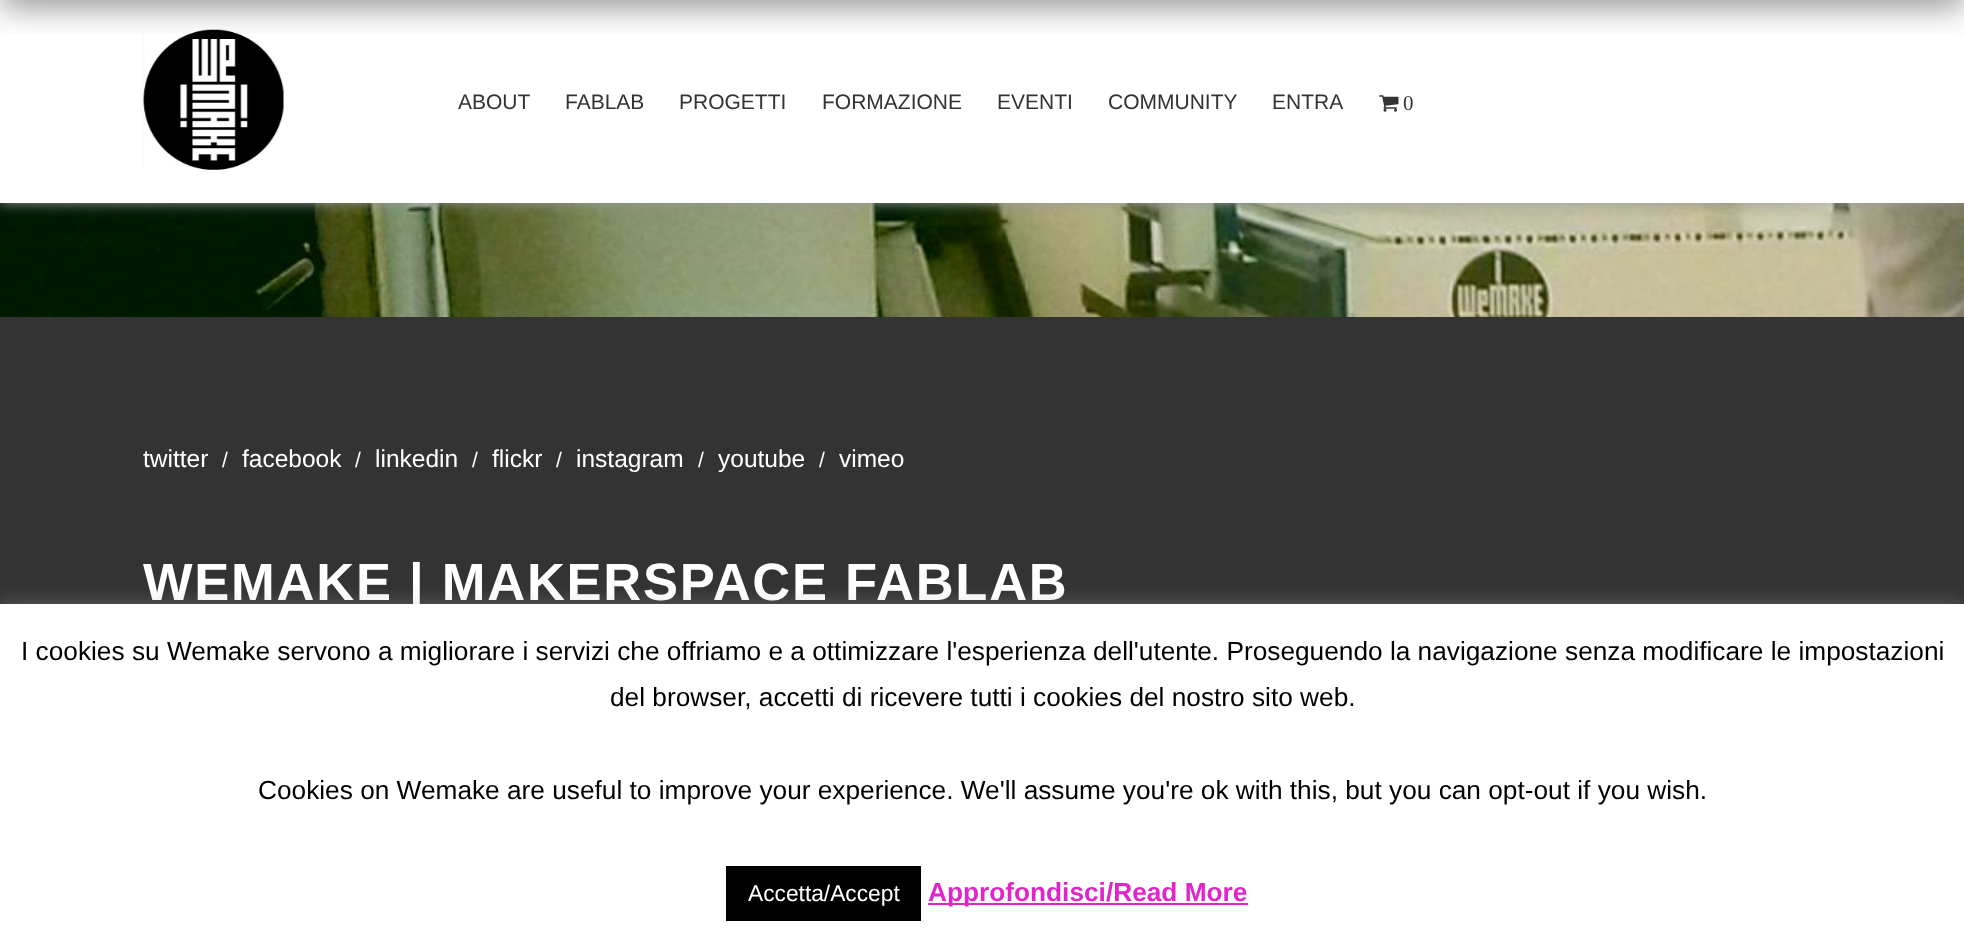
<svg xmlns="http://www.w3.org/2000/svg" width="1964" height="940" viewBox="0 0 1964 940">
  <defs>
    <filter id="blur1" x="-50%" y="-200%" width="200%" height="500%"><feGaussianBlur stdDeviation="7"/></filter>
    <filter id="blur2" x="-50%" y="-200%" width="200%" height="500%"><feGaussianBlur stdDeviation="17.5"/></filter>
    <filter id="blur3" x="-50%" y="-200%" width="200%" height="500%"><feGaussianBlur stdDeviation="9"/></filter>
  </defs>
  <rect width="100%" height="100%" fill="#ffffff"/>
  <image x="0" y="203" width="1964" height="114" href="img3.png"/>
  <rect x="0" y="0" width="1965" height="203" fill="#999999" filter="url(#blur1)"/>
  <rect x="0" y="0" width="1964" height="203" fill="#ffffff"/>
  <image x="143" y="29" width="141" height="141" href="img1.png"/>
  <rect x="0" y="-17" width="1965" height="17" fill="#000000" fill-opacity="0.8" filter="url(#blur2)"/>
  <text x="458" y="109" font-family="Liberation Sans" font-size="21" fill="#333333">ABOUT</text>
  <text x="565" y="109" font-family="Liberation Sans" font-size="21" fill="#333333">FABLAB</text>
  <text x="679" y="109" font-family="Liberation Sans" font-size="21" fill="#333333">PROGETTI</text>
  <text x="822" y="109" font-family="Liberation Sans" font-size="21" fill="#333333">FORMAZIONE</text>
  <text x="997" y="109" font-family="Liberation Sans" font-size="21" fill="#333333">EVENTI</text>
  <text x="1108" y="109" font-family="Liberation Sans" font-size="21" fill="#333333">COMMUNITY</text>
  <text x="1272" y="109" font-family="Liberation Sans" font-size="21" fill="#333333">ENTRA</text>
  <image x="1379" y="95" width="20" height="17" href="img2.png"/>
  <text x="1403" y="110" font-family="Liberation Serif" font-size="21" fill="#333333">0</text>
  <rect x="0" y="317" width="1964" height="287" fill="#333333"/>
  <text x="143" y="467" font-family="Liberation Sans" font-size="24.5" fill="#ffffff">twitter</text>
  <text x="222" y="467" font-family="Liberation Sans" font-size="21" fill="#ffffff">/</text>
  <text x="242" y="467" font-family="Liberation Sans" font-size="24.5" fill="#ffffff">facebook</text>
  <text x="355" y="467" font-family="Liberation Sans" font-size="21" fill="#ffffff">/</text>
  <text x="375" y="467" font-family="Liberation Sans" font-size="24.5" fill="#ffffff">linkedin</text>
  <text x="472" y="467" font-family="Liberation Sans" font-size="21" fill="#ffffff">/</text>
  <text x="492" y="467" font-family="Liberation Sans" font-size="24.5" fill="#ffffff">flickr</text>
  <text x="556" y="467" font-family="Liberation Sans" font-size="21" fill="#ffffff">/</text>
  <text x="576" y="467" font-family="Liberation Sans" font-size="24.5" fill="#ffffff">instagram</text>
  <text x="698" y="467" font-family="Liberation Sans" font-size="21" fill="#ffffff">/</text>
  <text x="718" y="467" font-family="Liberation Sans" font-size="24.5" fill="#ffffff">youtube</text>
  <text x="819" y="467" font-family="Liberation Sans" font-size="21" fill="#ffffff">/</text>
  <text x="839" y="467" font-family="Liberation Sans" font-size="24.5" fill="#ffffff">vimeo</text>
  <text x="143" y="600" font-family="Liberation Sans" font-size="52.5" font-weight="bold" letter-spacing="1.75" fill="#ffffff">WEMAKE | MAKERSPACE FABLAB</text>
  <rect x="0" y="602" width="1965" height="338" fill="#acabab" fill-opacity="0.3" filter="url(#blur3)"/>
  <rect x="0" y="604" width="1964" height="336" fill="#ffffff"/>
  <text x="21" y="660" font-family="Liberation Sans" font-size="26.25" fill="#000000">I cookies su Wemake servono a migliorare i servizi che offriamo e a ottimizzare l'esperienza dell'utente. Proseguendo la navigazione senza modificare le impostazioni</text>
  <text x="610" y="706" font-family="Liberation Sans" font-size="26.25" fill="#000000">del browser, accetti di ricevere tutti i cookies del nostro sito web.</text>
  <text x="258" y="799" font-family="Liberation Sans" font-size="26.25" fill="#000000">Cookies on Wemake are useful to improve your experience. We'll assume you're ok with this, but you can opt-out if you wish.</text>
  <rect x="726" y="866" width="195" height="55" fill="#000000"/>
  <text x="748" y="901" font-family="Liberation Sans" font-size="22.75" fill="#ffffff">Accetta/Accept</text>
  <rect x="928" y="903" width="320" height="2" fill="#e224c9"/>
  <text x="928" y="901" font-family="Liberation Sans" font-size="26.25" font-weight="bold" fill="#e224c9">Approfondisci/Read More</text>
</svg>
